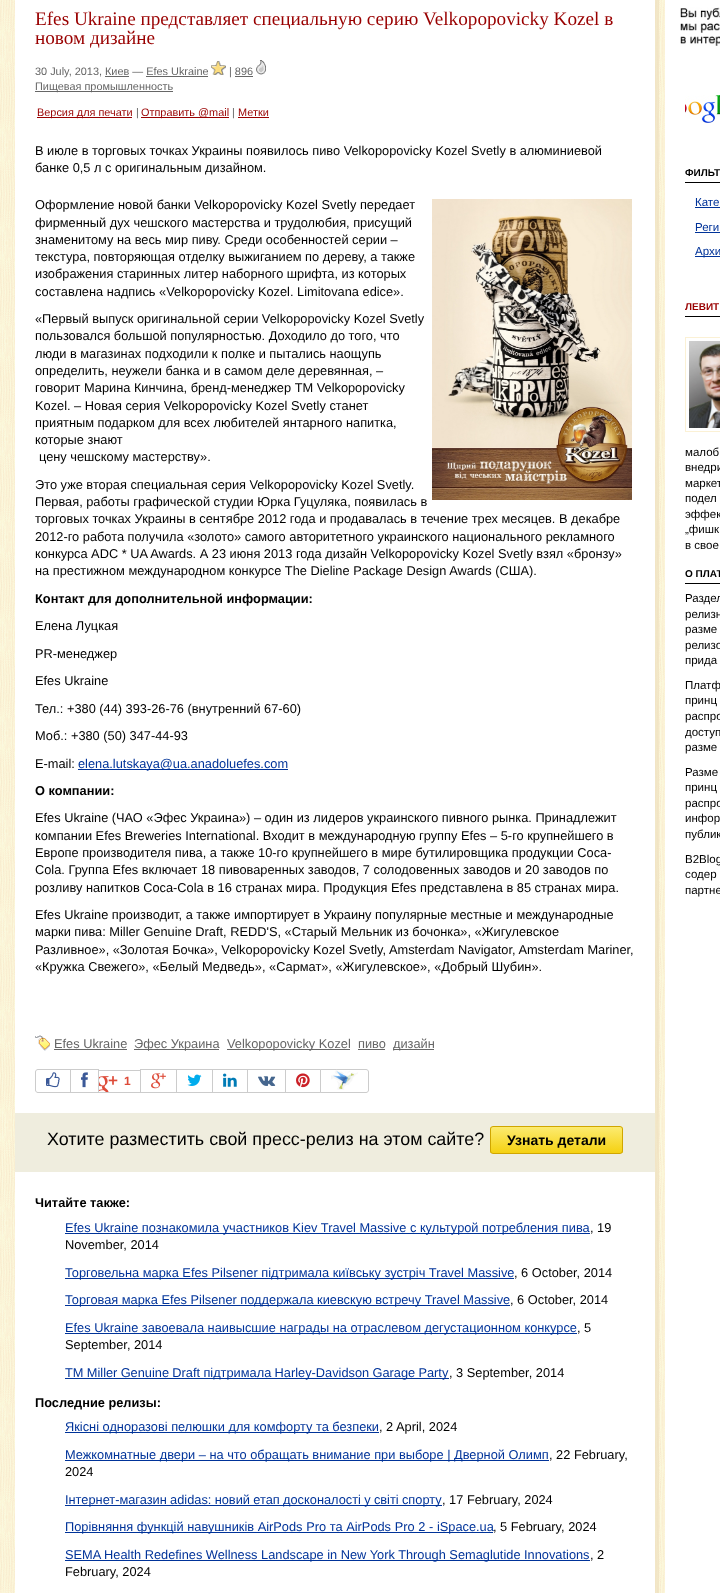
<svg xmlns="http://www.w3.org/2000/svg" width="720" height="1593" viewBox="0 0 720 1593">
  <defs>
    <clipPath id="clip1"><rect x="490" y="1126" width="133" height="28" rx="3"/></clipPath>
    <linearGradient id="g1" gradientUnits="userSpaceOnUse" x1="557" y1="1153" x2="557" y2="1127"><stop offset="0" stop-color="#f5d111"/><stop offset="1" stop-color="#fceb70"/></linearGradient>
  </defs>
  <rect width="100%" height="100%" fill="#ffffff"/>
  <image x="0" y="0" width="665" height="1593" href="img1.png"/>
  <rect x="655" y="0" width="4" height="1593" fill="#ecdebc" fill-opacity="0.6"/>
  <rect x="15" y="0" width="640" height="1593" fill="#ffffff"/>
  <text x="35" y="25" font-family="Liberation Serif" font-size="19.2" fill="#990000">Efes Ukraine представляет специальную серию Velkopopovicky Kozel в</text>
  <text x="35" y="44" font-family="Liberation Serif" font-size="19.2" fill="#990000">новом дизайне</text>
  <text x="35" y="75" font-family="Liberation Sans" font-size="10.9" fill="#666666">30 July, 2013, Киев — Efes Ukraine</text>
  <image x="211" y="61" width="15" height="14" href="img2.png"/>
  <text x="229" y="75" font-family="Liberation Sans" font-size="10.9" fill="#666666">| 896</text>
  <image x="256" y="60" width="10" height="15" href="img3.png"/>
  <rect x="105" y="76" width="24" height="1" fill="#666666"/>
  <rect x="146" y="76" width="62" height="1" fill="#666666"/>
  <rect x="235" y="76" width="18" height="1" fill="#666666"/>
  <rect x="35" y="91" width="138" height="1" fill="#666666"/>
  <text x="35" y="90" font-family="Liberation Sans" font-size="10.9" fill="#666666">Пищевая промышленность</text>
  <rect x="37" y="117" width="95" height="1" fill="#990000"/>
  <text x="37" y="116" font-family="Liberation Sans" font-size="10.9" fill="#990000">Версия для печати</text>
  <text x="136" y="116" font-family="Liberation Sans" font-size="10.9" fill="#666666">|</text>
  <rect x="141" y="117" width="88" height="1" fill="#990000"/>
  <text x="141" y="116" font-family="Liberation Sans" font-size="10.9" fill="#990000">Отправить @mail</text>
  <text x="232" y="116" font-family="Liberation Sans" font-size="10.9" fill="#666666">|</text>
  <text x="238" y="116" font-family="Liberation Sans" font-size="10.9" fill="#990000">Метки</text>
  <rect x="238" y="117" width="31" height="1" fill="#990000"/>
  <text x="35" y="155" font-family="Liberation Sans" font-size="12.8" fill="#000000">В июле в торговых точках Украины появилось пиво Velkopopovicky Kozel Svetly в алюминиевой</text>
  <text x="35" y="172" font-family="Liberation Sans" font-size="12.8" fill="#000000">банке 0,5 л с оригинальным дизайном.</text>
  <text x="35" y="209" font-family="Liberation Sans" font-size="12.8" fill="#000000">Оформление новой банки Velkopopovicky Kozel Svetly передает</text>
  <image x="432" y="199" width="200" height="301" href="img4.png"/>
  <text x="35" y="227" font-family="Liberation Sans" font-size="12.8" fill="#000000">фирменный дух чешского мастерства и трудолюбия, присущий</text>
  <text x="35" y="244" font-family="Liberation Sans" font-size="12.8" fill="#000000">знаменитому на весь мир пиву. Среди особенностей серии –</text>
  <text x="35" y="261" font-family="Liberation Sans" font-size="12.8" fill="#000000">текстура, повторяющая отделку выжиганием по дереву, а также</text>
  <text x="35" y="278" font-family="Liberation Sans" font-size="12.8" fill="#000000">изображения старинных литер наборного шрифта, из которых</text>
  <text x="35" y="296" font-family="Liberation Sans" font-size="12.8" fill="#000000">составлена надпись «Velkopopovicky Kozel. Limitovana edice».</text>
  <text x="35" y="323" font-family="Liberation Sans" font-size="12.8" fill="#000000">«Первый выпуск оригинальной серии Velkopopovicky Kozel Svetly</text>
  <text x="35" y="340" font-family="Liberation Sans" font-size="12.8" fill="#000000">пользовался большой популярностью. Доходило до того, что</text>
  <text x="35" y="358" font-family="Liberation Sans" font-size="12.8" fill="#000000">люди в магазинах подходили к полке и пытались наощупь</text>
  <text x="35" y="375" font-family="Liberation Sans" font-size="12.8" fill="#000000">определить, неужели банка и в самом деле деревянная, –</text>
  <text x="35" y="392" font-family="Liberation Sans" font-size="12.8" fill="#000000">говорит Марина Кинчина, бренд-менеджер ТМ Velkopopovicky</text>
  <text x="35" y="410" font-family="Liberation Sans" font-size="12.8" fill="#000000">Kozel. – Новая серия Velkopopovicky Kozel Svetly станет</text>
  <text x="35" y="427" font-family="Liberation Sans" font-size="12.8" fill="#000000">приятным подарком для всех любителей янтарного напитка,</text>
  <text x="35" y="444" font-family="Liberation Sans" font-size="12.8" fill="#000000">которые знают</text>
  <text x="39" y="461" font-family="Liberation Sans" font-size="12.8" fill="#000000">цену чешскому мастерству».</text>
  <text x="35" y="489" font-family="Liberation Sans" font-size="12.8" fill="#000000">Это уже вторая специальная серия Velkopopovicky Kozel Svetly.</text>
  <text x="35" y="506" font-family="Liberation Sans" font-size="12.8" fill="#000000">Первая, работы графической студии Юрка Гуцуляка, появилась в</text>
  <text x="35" y="523" font-family="Liberation Sans" font-size="12.8" fill="#000000">торговых точках Украины в сентябре 2012 года и продавалась в течение трех месяцев. В декабре</text>
  <text x="35" y="541" font-family="Liberation Sans" font-size="12.8" fill="#000000">2012-го работа получила «золото» самого авторитетного украинского национального рекламного</text>
  <text x="35" y="558" font-family="Liberation Sans" font-size="12.8" fill="#000000">конкурса ADC * UA Awards. А 23 июня 2013 года дизайн Velkopopovicky Kozel Svetly взял «бронзу»</text>
  <text x="35" y="575" font-family="Liberation Sans" font-size="12.8" fill="#000000">на престижном международном конкурсе The Dieline Package Design Awards (США).</text>
  <text x="35" y="603" font-family="Liberation Sans" font-size="12.8" font-weight="bold" fill="#000000">Контакт для дополнительной информации:</text>
  <text x="35" y="630" font-family="Liberation Sans" font-size="12.8" fill="#000000">Елена Луцкая</text>
  <text x="35" y="658" font-family="Liberation Sans" font-size="12.8" fill="#000000">PR-менеджер</text>
  <text x="35" y="685" font-family="Liberation Sans" font-size="12.8" fill="#000000">Efes Ukraine</text>
  <text x="35" y="713" font-family="Liberation Sans" font-size="12.8" fill="#000000">Тел.: +380 (44) 393-26-76 (внутренний 67-60)</text>
  <text x="35" y="740" font-family="Liberation Sans" font-size="12.8" fill="#000000">Моб.: +380 (50) 347-44-93</text>
  <text x="35" y="768" font-family="Liberation Sans" font-size="12.8" fill="#000000">Е-mail:</text>
  <rect x="78" y="769" width="210" height="1" fill="#003399"/>
  <text x="78" y="768" font-family="Liberation Sans" font-size="12.8" fill="#003399">elena.lutskaya@ua.anadoluefes.com</text>
  <text x="35" y="795" font-family="Liberation Sans" font-size="12.8" font-weight="bold" fill="#000000">О компании:</text>
  <text x="35" y="822" font-family="Liberation Sans" font-size="12.8" fill="#000000">Efes Ukraine (ЧАО «Эфес Украина») – один из лидеров украинского пивного рынка. Принадлежит</text>
  <text x="35" y="840" font-family="Liberation Sans" font-size="12.8" fill="#000000">компании Efes Breweries International. Входит в международную группу Efes – 5-го крупнейшего в</text>
  <text x="35" y="857" font-family="Liberation Sans" font-size="12.8" fill="#000000">Европе производителя пива, а также 10-го крупнейшего в мире бутилировщика продукции Coca-</text>
  <text x="35" y="874" font-family="Liberation Sans" font-size="12.8" fill="#000000">Cola. Группа Efes включает 18 пивоваренных заводов, 7 солодовенных заводов и 20 заводов по</text>
  <text x="35" y="892" font-family="Liberation Sans" font-size="12.8" fill="#000000">розливу напитков Coca-Cola в 16 странах мира. Продукция Efes представлена в 85 странах мира.</text>
  <text x="35" y="919" font-family="Liberation Sans" font-size="12.8" fill="#000000">Efes Ukraine производит, а также импортирует в Украину популярные местные и международные</text>
  <text x="35" y="936" font-family="Liberation Sans" font-size="12.8" fill="#000000">марки пива: Miller Genuine Draft, REDD'S, «Старый Мельник из бочонка», «Жигулевское</text>
  <text x="35" y="954" font-family="Liberation Sans" font-size="12.8" fill="#000000">Разливное», «Золотая Бочка», Velkopopovicky Kozel Svetly, Amsterdam Navigator, Amsterdam Mariner,</text>
  <text x="35" y="971" font-family="Liberation Sans" font-size="12.8" fill="#000000">«Кружка Свежего», «Белый Медведь», «Сармат», «Жигулевское», «Добрый Шубин».</text>
  <image x="35" y="1035" width="15" height="16" href="img5.png"/>
  <text x="54" y="1048" font-family="Liberation Sans" font-size="12.8" fill="#666666">Efes Ukraine</text>
  <rect x="54" y="1049" width="73" height="1" fill="#666666"/>
  <rect x="134" y="1049" width="85" height="1" fill="#666666"/>
  <text x="134" y="1048" font-family="Liberation Sans" font-size="12.8" fill="#666666">Эфес Украина</text>
  <rect x="227" y="1049" width="123" height="1" fill="#666666"/>
  <text x="227" y="1048" font-family="Liberation Sans" font-size="12.8" fill="#666666">Velkopopovicky Kozel</text>
  <text x="358" y="1048" font-family="Liberation Sans" font-size="12.8" fill="#666666">пиво</text>
  <rect x="358" y="1049" width="27" height="1" fill="#666666"/>
  <rect x="393" y="1049" width="41" height="1" fill="#666666"/>
  <text x="393" y="1048" font-family="Liberation Sans" font-size="12.8" fill="#666666">дизайн</text>
  <path d="M38 1069.5H70.5V1092.5H38C36.5 1092.5 35.5 1091.5 35.5 1090V1072C35.5 1070.5 36.5 1069.5 38 1069.5Z" fill="none" stroke="#cccccc"/>
  <image x="46" y="1072" width="14" height="16" href="img6.png"/>
  <rect x="70.5" y="1069.5" width="28" height="23" fill="none" stroke="#cccccc"/>
  <image x="81" y="1072" width="7" height="16" href="img7.png"/>
  <rect x="140.5" y="1069.5" width="36" height="23" fill="none" stroke="#cccccc"/>
  <rect x="98.5" y="1070.5" width="42" height="22" fill="none" stroke="#cccccc"/>
  <image x="99" y="1076" width="19" height="16" href="img8.png"/>
  <text x="124" y="1085" font-family="Liberation Sans" font-size="12" font-weight="bold" fill="#dd4b39">1</text>
  <image x="151" y="1073" width="15" height="16" href="img9.png"/>
  <rect x="176.5" y="1069.5" width="36" height="23" fill="none" stroke="#cccccc"/>
  <image x="187" y="1074" width="15" height="12" href="img10.png"/>
  <rect x="212.5" y="1069.5" width="35" height="23" fill="none" stroke="#cccccc"/>
  <image x="223" y="1073" width="14" height="14" href="img11.png"/>
  <rect x="247.5" y="1069.5" width="38" height="23" fill="none" stroke="#cccccc"/>
  <image x="258" y="1076" width="18" height="10" href="img12.png"/>
  <rect x="285.5" y="1069.5" width="35" height="23" fill="none" stroke="#cccccc"/>
  <image x="296" y="1073" width="14" height="15" href="img13.png"/>
  <path d="M320.5 1069.5H366C367.5 1069.5 368.5 1070.5 368.5 1072V1090C368.5 1091.5 367.5 1092.5 366 1092.5H320.5Z" fill="#ffffff" stroke="#cccccc"/>
  <image x="331" y="1069" width="27" height="21" href="img14.png"/>
  <rect x="15" y="1113" width="640" height="59" fill="#efedde"/>
  <text x="47" y="1145" font-family="Liberation Sans" font-size="17.9" fill="#000000">Хотите разместить свой пресс-релиз на этом сайте?</text>
  <g clip-path="url(#clip1)">
    <rect x="490" y="1127" width="133" height="26" fill="url(#g1)"/>
  </g>
  <rect x="490.5" y="1126.5" width="132" height="27" rx="2.5" fill="none" stroke="#d0a600"/>
  <text x="507" y="1145" font-family="Liberation Sans" font-size="14" font-weight="bold" fill="#000000">Узнать детали</text>
  <text x="35" y="1207" font-family="Liberation Sans" font-size="12.8" font-weight="bold" fill="#000000">Читайте также:</text>
  <rect x="65" y="1233" width="525" height="1" fill="#003399"/>
  <text x="65" y="1232" font-family="Liberation Sans" font-size="12.8" fill="#003399">Efes Ukraine познакомила участников Kiev Travel Massive с культурой потребления пива</text>
  <text x="590" y="1232" font-family="Liberation Sans" font-size="12.8" fill="#000000">, 19</text>
  <text x="65" y="1249" font-family="Liberation Sans" font-size="12.8" fill="#000000">November, 2014</text>
  <rect x="65" y="1278" width="449" height="1" fill="#003399"/>
  <text x="65" y="1277" font-family="Liberation Sans" font-size="12.8" fill="#003399">Торговельна марка Efes Pilsener підтримала київську зустріч Travel Massive</text>
  <text x="514" y="1277" font-family="Liberation Sans" font-size="12.8" fill="#000000">, 6 October, 2014</text>
  <rect x="65" y="1305" width="445" height="1" fill="#003399"/>
  <text x="65" y="1304" font-family="Liberation Sans" font-size="12.8" fill="#003399">Торговая марка Efes Pilsener поддержала киевскую встречу Travel Massive</text>
  <text x="510" y="1304" font-family="Liberation Sans" font-size="12.8" fill="#000000">, 6 October, 2014</text>
  <rect x="65" y="1333" width="512" height="1" fill="#003399"/>
  <text x="65" y="1332" font-family="Liberation Sans" font-size="12.8" fill="#003399">Efes Ukraine завоевала наивысшие награды на отраслевом дегустационном конкурсе</text>
  <text x="577" y="1332" font-family="Liberation Sans" font-size="12.8" fill="#000000">, 5</text>
  <text x="65" y="1349" font-family="Liberation Sans" font-size="12.8" fill="#000000">September, 2014</text>
  <rect x="65" y="1378" width="384" height="1" fill="#003399"/>
  <text x="65" y="1377" word-spacing="-0.25" font-family="Liberation Sans" font-size="12.8" fill="#003399">TM Miller Genuine Draft підтримала Harley-Davidson Garage Party</text>
  <text x="449" y="1377" font-family="Liberation Sans" font-size="12.8" fill="#000000">, 3 September, 2014</text>
  <text x="35" y="1407" font-family="Liberation Sans" font-size="12.8" font-weight="bold" fill="#000000">Последние релизы:</text>
  <rect x="65" y="1432" width="314" height="1" fill="#003399"/>
  <text x="65" y="1431" font-family="Liberation Sans" font-size="12.8" fill="#003399">Якісні одноразові пелюшки для комфорту та безпеки</text>
  <text x="379" y="1431" font-family="Liberation Sans" font-size="12.8" fill="#000000">, 2 April, 2024</text>
  <rect x="65" y="1460" width="484" height="1" fill="#003399"/>
  <text x="65" y="1459" font-family="Liberation Sans" font-size="12.8" fill="#003399">Межкомнатные двери – на что обращать внимание при выборе | Дверной Олимп</text>
  <text x="549" y="1459" font-family="Liberation Sans" font-size="12.8" fill="#000000">, 22 February,</text>
  <text x="65" y="1476" font-family="Liberation Sans" font-size="12.8" fill="#000000">2024</text>
  <rect x="65" y="1505" width="377" height="1" fill="#003399"/>
  <text x="65" y="1504" word-spacing="-0.25" font-family="Liberation Sans" font-size="12.8" fill="#003399">Інтернет-магазин adidas: новий етап досконалості у світі спорту</text>
  <text x="442" y="1504" font-family="Liberation Sans" font-size="12.8" fill="#000000">, 17 February, 2024</text>
  <rect x="65" y="1532" width="428" height="1" fill="#003399"/>
  <text x="65" y="1531" word-spacing="0.1" font-family="Liberation Sans" font-size="12.8" fill="#003399">Порівняння функцій навушників AirPods Pro та AirPods Pro 2 - iSpace.ua</text>
  <text x="493" y="1531" font-family="Liberation Sans" font-size="12.8" fill="#000000">, 5 February, 2024</text>
  <rect x="65" y="1560" width="525" height="1" fill="#003399"/>
  <text x="65" y="1559" font-family="Liberation Sans" font-size="12.8" fill="#003399">SEMA Health Redefines Wellness Landscape in New York Through Semaglutide Innovations</text>
  <text x="590" y="1559" font-family="Liberation Sans" font-size="12.8" fill="#000000">, 2</text>
  <text x="65" y="1576" font-family="Liberation Sans" font-size="12.8" fill="#000000">February, 2024</text>
  <image x="680" y="7" width="40" height="39" href="img15.png"/>
  <image x="685" y="95" width="35" height="28" href="img16.png"/>
  <rect x="685" y="182" width="35" height="1" fill="#000000"/>
  <text x="685" y="176" font-family="Liberation Sans" font-size="10" font-weight="bold" fill="#000000">ФИЛЬТ</text>
  <text x="695" y="206" font-family="Liberation Sans" font-size="11.5" fill="#003399">Кате</text>
  <rect x="695" y="207" width="25" height="1" fill="#003399"/>
  <text x="695" y="231" font-family="Liberation Sans" font-size="11.5" fill="#003399">Реги</text>
  <rect x="695" y="232" width="25" height="1" fill="#003399"/>
  <rect x="695" y="256" width="25" height="1" fill="#003399"/>
  <text x="695" y="255" font-family="Liberation Sans" font-size="11.5" fill="#003399">Архи</text>
  <rect x="685" y="316" width="35" height="1" fill="#000000"/>
  <text x="685" y="310" font-family="Liberation Sans" font-size="10" font-weight="bold" fill="#990000">ЛЕВИТ</text>
  <rect x="685.5" y="337.5" width="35" height="94" fill="none" stroke="#fbf1d5"/>
  <image x="689" y="341" width="31" height="87" href="img17.png"/>
  <text x="685" y="456" font-family="Liberation Sans" font-size="11.5" fill="#000000">малоб</text>
  <text x="685" y="471" font-family="Liberation Sans" font-size="11.5" fill="#000000">внедри</text>
  <text x="685" y="487" font-family="Liberation Sans" font-size="11.5" fill="#000000">маркет</text>
  <text x="685" y="502" font-family="Liberation Sans" font-size="11.5" fill="#000000">подел</text>
  <text x="685" y="518" font-family="Liberation Sans" font-size="11.5" fill="#000000">эффек</text>
  <text x="685" y="533" font-family="Liberation Sans" font-size="11.5" fill="#000000">„фишк</text>
  <text x="685" y="549" font-family="Liberation Sans" font-size="11.5" fill="#000000">в свое</text>
  <rect x="685" y="583" width="35" height="1" fill="#000000"/>
  <text x="685" y="577" font-family="Liberation Sans" font-size="10" font-weight="bold" fill="#000000">О ПЛАТ</text>
  <text x="685" y="602" font-family="Liberation Sans" font-size="11.5" fill="#000000">Раздел</text>
  <text x="685" y="618" font-family="Liberation Sans" font-size="11.5" fill="#000000">релизн</text>
  <text x="685" y="633" font-family="Liberation Sans" font-size="11.5" fill="#000000">разме</text>
  <text x="685" y="649" font-family="Liberation Sans" font-size="11.5" fill="#000000">релизо</text>
  <text x="685" y="664" font-family="Liberation Sans" font-size="11.5" fill="#000000">прида</text>
  <text x="685" y="689" font-family="Liberation Sans" font-size="11.5" fill="#000000">Платф</text>
  <text x="685" y="704" font-family="Liberation Sans" font-size="11.5" fill="#000000">принц</text>
  <text x="685" y="720" font-family="Liberation Sans" font-size="11.5" fill="#000000">распро</text>
  <text x="685" y="736" font-family="Liberation Sans" font-size="11.5" fill="#000000">доступ</text>
  <text x="685" y="751" font-family="Liberation Sans" font-size="11.5" fill="#000000">разме</text>
  <text x="685" y="776" font-family="Liberation Sans" font-size="11.5" fill="#000000">Разме</text>
  <text x="685" y="791" font-family="Liberation Sans" font-size="11.5" fill="#000000">принц</text>
  <text x="685" y="807" font-family="Liberation Sans" font-size="11.5" fill="#000000">распро</text>
  <text x="685" y="822" font-family="Liberation Sans" font-size="11.5" fill="#000000">инфор</text>
  <text x="685" y="838" font-family="Liberation Sans" font-size="11.5" fill="#000000">публик</text>
  <text x="685" y="863" font-family="Liberation Sans" font-size="11.5" fill="#000000">B2Blog</text>
  <text x="685" y="878" font-family="Liberation Sans" font-size="11.5" fill="#000000">содер</text>
  <text x="685" y="894" font-family="Liberation Sans" font-size="11.5" fill="#000000">партне</text>
</svg>
